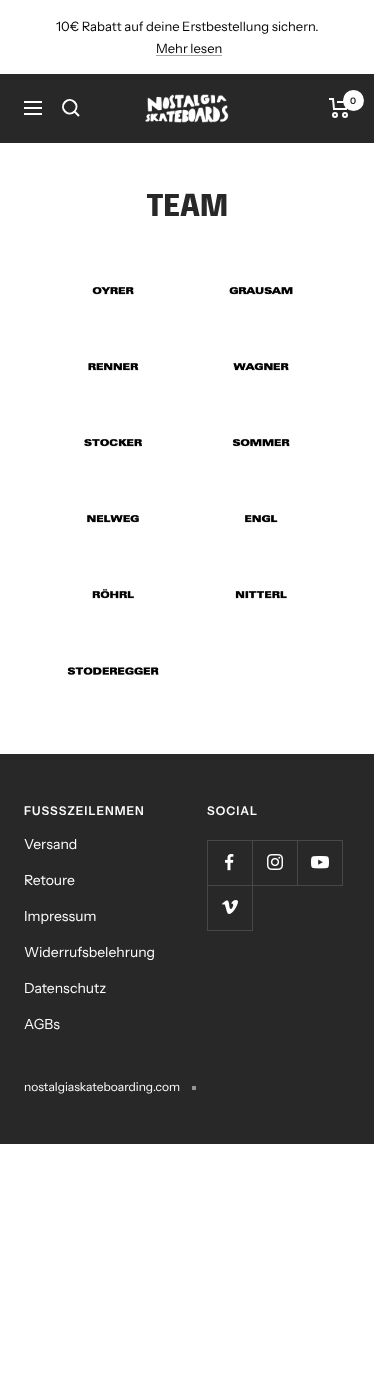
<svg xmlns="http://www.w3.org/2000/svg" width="374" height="1392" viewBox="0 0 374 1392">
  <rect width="100%" height="100%" fill="#ffffff"/>
  <text x="56" y="31" font-family="Instrument Sans" font-size="13" fill="#000000">10€ Rabatt auf deine Erstbestellung sichern.</text>
  <text x="156" y="53" font-family="Instrument Sans" font-size="13" fill="#000000">Mehr lesen</text>
  <rect x="156" y="55" width="66" height="1" fill="#a6a6a6"/>
  <rect x="0" y="74" width="374" height="69" fill="#282828"/>
  <path d="M24 102H42M24 114H42ZM24 108H42ZM74.5 111.5C80.5 105 71.5 96 65 102C59 108.5 68 117.5 74.5 111.5ZM74.5 111.5L79 116" fill="none" stroke="#ffffff" stroke-width="2"/>
  <image x="145" y="94" width="84" height="29" href="img1.png"/>
  <path d="M329 99H333L334 109H346L348 102H337" fill="none" stroke="#ffffff" stroke-width="2"/>
  <circle cx="335" cy="115" r="2" fill="none" stroke="#ffffff" stroke-width="2"/>
  <circle cx="345" cy="115" r="2" fill="none" stroke="#ffffff" stroke-width="2"/>
  <circle cx="353.5" cy="100.5" r="10.5" fill="#ffffff"/>
  <text x="350" y="104" font-family="Instrument Sans" font-size="9" font-weight="600" fill="#282828">0</text>
  <text x="146" y="216" font-family="Epilogue" font-size="30" font-weight="800" letter-spacing="-0.5" fill="#282828">TEAM</text>
  <image x="91" y="287" width="44" height="8" href="img2.png"/>
  <image x="229" y="286" width="64" height="9" href="img3.png"/>
  <image x="88" y="362" width="51" height="9" href="img4.png"/>
  <image x="233" y="363" width="56" height="8" href="img5.png"/>
  <image x="83" y="439" width="59" height="8" href="img6.png"/>
  <image x="232" y="438" width="59" height="9" href="img7.png"/>
  <image x="87" y="514" width="52" height="9" href="img8.png"/>
  <image x="245" y="514" width="33" height="9" href="img9.png"/>
  <image x="92" y="588" width="42" height="11" href="img10.png"/>
  <image x="235" y="591" width="52" height="8" href="img11.png"/>
  <image x="67" y="666" width="92" height="9" href="img12.png"/>
  <rect x="0" y="754" width="374" height="390" fill="#282828"/>
  <text x="24" y="815" font-family="Instrument Sans" font-size="12" font-weight="600" letter-spacing="1" fill="#ffffff">FUSSSZEILENMEN</text>
  <text x="24" y="849" font-family="Instrument Sans" font-size="14" fill="#ffffff">Versand</text>
  <text x="24" y="885" font-family="Instrument Sans" font-size="14" fill="#ffffff">Retoure</text>
  <text x="24" y="921" font-family="Instrument Sans" font-size="14" fill="#ffffff">Impressum</text>
  <text x="24" y="957" font-family="Instrument Sans" font-size="14" fill="#ffffff">Widerrufsbelehrung</text>
  <text x="24" y="993" font-family="Instrument Sans" font-size="14" fill="#ffffff">Datenschutz</text>
  <text x="24" y="1029" font-family="Instrument Sans" font-size="14" fill="#ffffff">AGBs</text>
  <text x="207" y="815" font-family="Instrument Sans" font-size="12" font-weight="600" letter-spacing="1" fill="#ffffff">SOCIAL</text>
  <path d="M208 885V886H253V841H252V885Z" fill="#484848"/>
  <rect x="207" y="885" width="1" height="1" fill="#484848"/>
  <rect x="207" y="840" width="46" height="1" fill="#484848"/>
  <rect x="207" y="840" width="1" height="45" fill="#484848"/>
  <image x="225" y="854" width="9" height="17" href="img13.png"/>
  <path d="M253 885V886H298V841H297V885Z" fill="#484848"/>
  <rect x="252" y="840" width="46" height="1" fill="#484848"/>
  <image x="267" y="854" width="16" height="16" href="img14.png"/>
  <path d="M298 885V886H343V841H342V885Z" fill="#484848"/>
  <rect x="297" y="840" width="46" height="1" fill="#484848"/>
  <image x="311" y="856" width="18" height="13" href="img15.png"/>
  <path d="M208 930V931H253V886H252V930Z" fill="#484848"/>
  <rect x="207" y="885" width="1" height="46" fill="#484848"/>
  <image x="222" y="900" width="16" height="14" href="img16.png"/>
  <text x="24" y="1091" font-family="Instrument Sans" font-size="12" fill="#ffffff">nostalgiaskateboarding.com</text>
  <rect x="192" y="1086" width="4" height="4" fill="#949494"/>
</svg>
